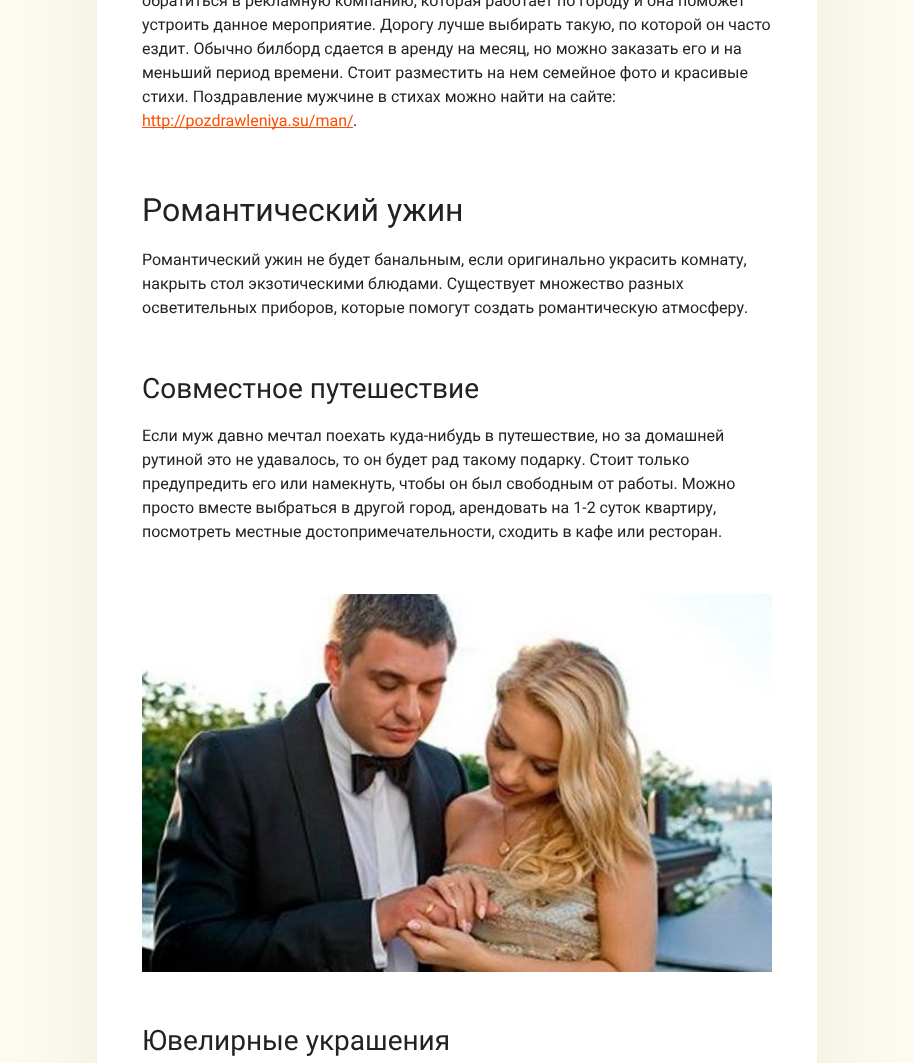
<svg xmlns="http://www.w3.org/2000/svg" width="913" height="1063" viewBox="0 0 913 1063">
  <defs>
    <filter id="blur1" x="-50%" y="-200%" width="200%" height="500%"><feGaussianBlur stdDeviation="50"/></filter>
  </defs>
  <rect width="100%" height="100%" fill="#fdfbf2"/>
  <rect x="97" y="-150" width="720" height="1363" fill="#b2a569" fill-opacity="0.19" filter="url(#blur1)"/>
  <rect x="97" y="0" width="720" height="1063" fill="#ffffff"/>
  <text x="142" y="6" font-family="Roboto" font-size="16" fill="#222222">обратиться в рекламную компанию, которая работает по городу и она поможет</text>
  <text x="142" y="30" font-family="Roboto" font-size="16" fill="#222222">устроить данное мероприятие. Дорогу лучше выбирать такую, по которой он часто</text>
  <text x="142" y="54" font-family="Roboto" font-size="16" fill="#222222">ездит. Обычно билборд сдается в аренду на месяц, но можно заказать его и на</text>
  <text x="142" y="78" font-family="Roboto" font-size="16" fill="#222222">меньший период времени. Стоит разместить на нем семейное фото и красивые</text>
  <text x="142" y="102" font-family="Roboto" font-size="16" fill="#222222">стихи. Поздравление мужчине в стихах можно найти на сайте:</text>
  <rect x="142" y="127" width="211" height="1" fill="#ff4e00"/>
  <text x="142" y="126" font-family="Roboto" font-size="16" fill="#ff4e00">http://pozdrawleniya.su/man/</text>
  <text x="353" y="126" font-family="Roboto" font-size="16" fill="#222222">.</text>
  <text x="142" y="221" font-family="Roboto" font-size="32" fill="#222222">Романтический ужин</text>
  <text x="142" y="265" font-family="Roboto" font-size="16" fill="#222222">Романтический ужин не будет банальным, если оригинально украсить комнату,</text>
  <text x="142" y="289" font-family="Roboto" font-size="16" fill="#222222">накрыть стол экзотическими блюдами. Существует множество разных</text>
  <text x="142" y="313" font-family="Roboto" font-size="16" fill="#222222">осветительных приборов, которые помогут создать романтическую атмосферу.</text>
  <text x="142" y="398" font-family="Roboto" font-size="28" fill="#222222">Совместное путешествие</text>
  <text x="142" y="441" font-family="Roboto" font-size="16" fill="#222222">Если муж давно мечтал поехать куда-нибудь в путешествие, но за домашней</text>
  <text x="142" y="465" font-family="Roboto" font-size="16" fill="#222222">рутиной это не удавалось, то он будет рад такому подарку. Стоит только</text>
  <text x="142" y="489" font-family="Roboto" font-size="16" fill="#222222">предупредить его или намекнуть, чтобы он был свободным от работы. Можно</text>
  <text x="142" y="513" font-family="Roboto" font-size="16" fill="#222222">просто вместе выбраться в другой город, арендовать на 1-2 суток квартиру,</text>
  <text x="142" y="537" font-family="Roboto" font-size="16" fill="#222222">посмотреть местные достопримечательности, сходить в кафе или ресторан.</text>
  <image x="142" y="594" width="630" height="378" href="img1.png"/>
  <text x="142" y="1050" font-family="Roboto" font-size="28" fill="#222222">Ювелирные украшения</text>
</svg>
